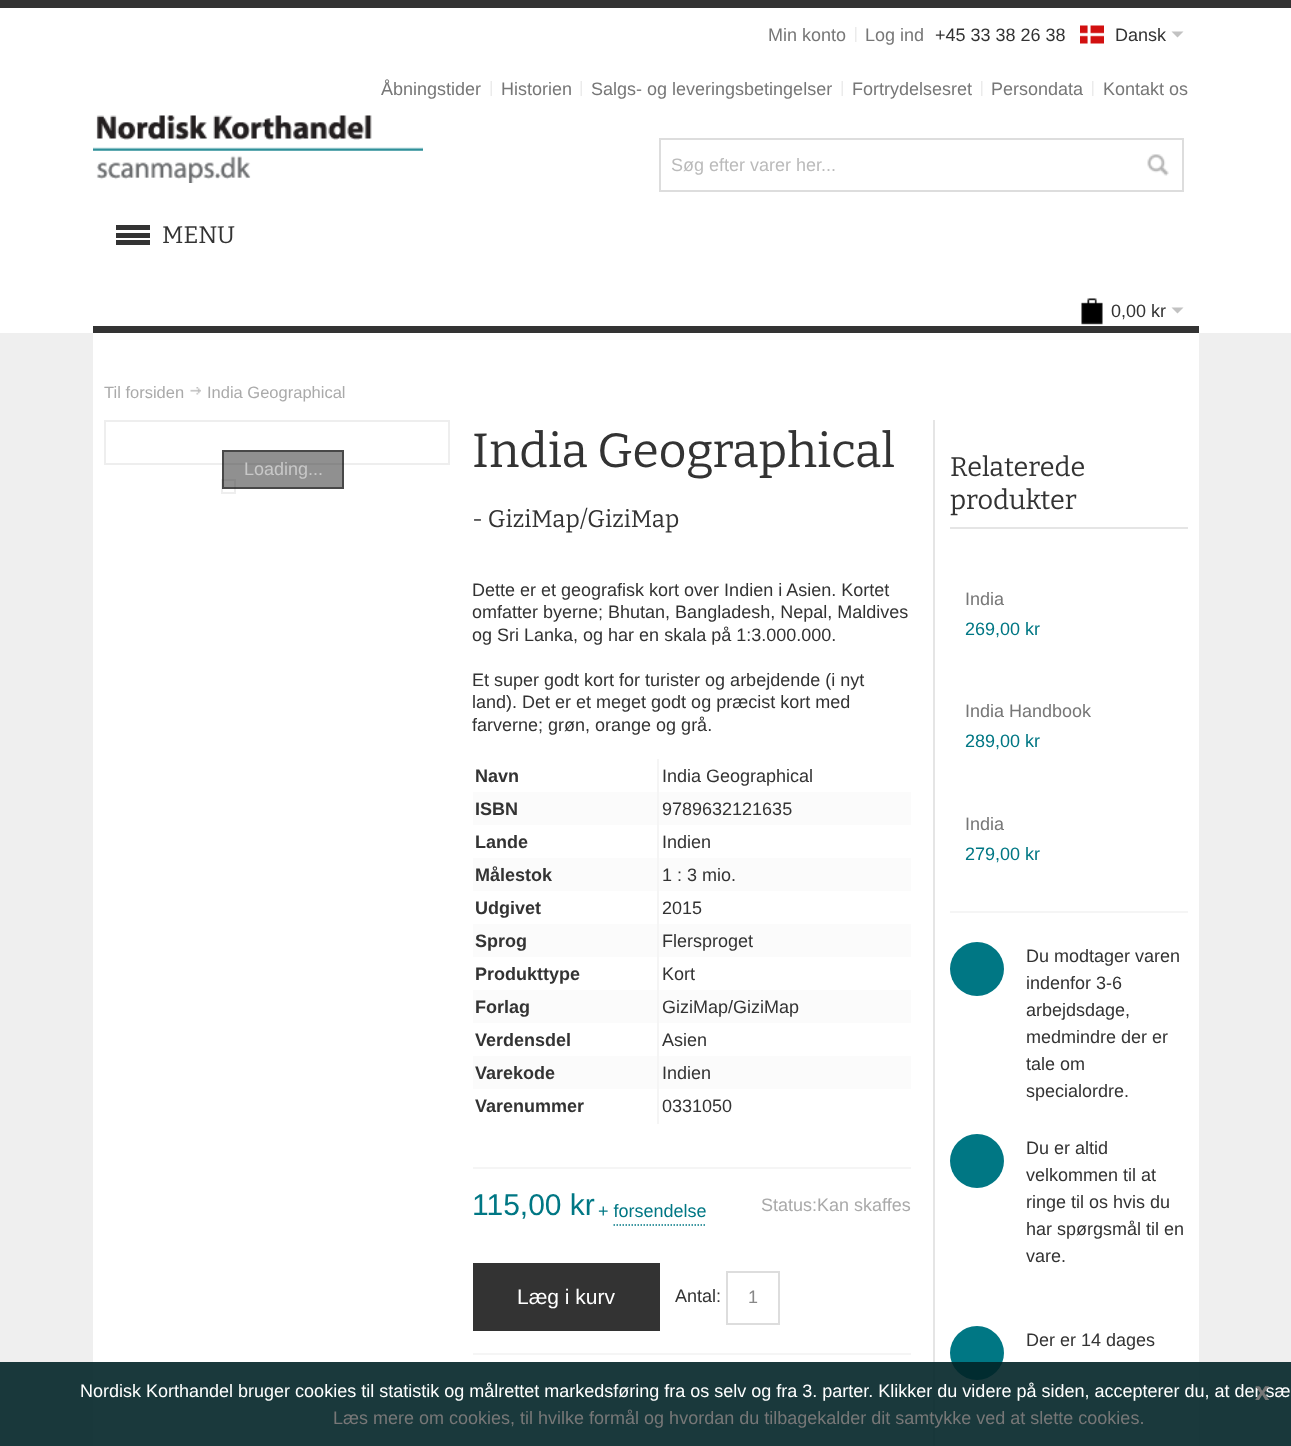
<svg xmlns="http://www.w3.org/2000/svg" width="1291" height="1446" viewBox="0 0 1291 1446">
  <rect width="100%" height="100%" fill="#ffffff"/>
  <rect x="0" y="0" width="1291" height="8" fill="#333333"/>
  <text x="768" y="41" font-family="Liberation Sans" font-size="18" fill="#777777">Min konto</text>
  <image x="855" y="27" width="2" height="15" href="img1.png"/>
  <text x="865" y="41" font-family="Liberation Sans" font-size="18" fill="#777777">Log ind</text>
  <text x="935" y="41" font-family="Liberation Sans" font-size="18" fill="#333333">+45 33 38 26 38</text>
  <image x="1080" y="25" width="24" height="19" href="img2.png"/>
  <text x="1115" y="41" font-family="Liberation Sans" font-size="18" fill="#333333">Dansk</text>
  <path d="M1171.5 31.5H1183.5L1177.5 37.5Z" fill="#c2c2c2"/>
  <image x="490" y="81" width="2" height="15" href="img3.png"/>
  <text x="381" y="95" font-family="Liberation Sans" font-size="18" fill="#777777">Åbningstider</text>
  <image x="580" y="81" width="2" height="15" href="img3.png"/>
  <text x="501" y="95" font-family="Liberation Sans" font-size="18" fill="#777777">Historien</text>
  <image x="841" y="81" width="2" height="15" href="img3.png"/>
  <text x="591" y="95" font-family="Liberation Sans" font-size="18" fill="#777777">Salgs- og leveringsbetingelser</text>
  <image x="981" y="81" width="2" height="15" href="img1.png"/>
  <text x="852" y="95" font-family="Liberation Sans" font-size="18" fill="#777777">Fortrydelsesret</text>
  <image x="1092" y="81" width="2" height="15" href="img1.png"/>
  <text x="991" y="95" font-family="Liberation Sans" font-size="18" fill="#777777">Persondata</text>
  <text x="1103" y="95" font-family="Liberation Sans" font-size="18" fill="#777777">Kontakt os</text>
  <image x="93" y="115" width="330" height="68" href="img4.png"/>
  <rect x="660" y="139" width="523" height="52" fill="none" stroke="#dddddd" stroke-width="2"/>
  <text x="671" y="171" font-family="Liberation Sans" font-size="18" fill="#bbbbbb">Søg efter varer her...</text>
  <image x="1147" y="154" width="22" height="22" href="img5.png"/>
  <rect x="116" y="225" width="34" height="5" fill="#333333"/>
  <rect x="116" y="233" width="34" height="5" fill="#333333"/>
  <rect x="116" y="240" width="34" height="5" fill="#333333"/>
  <text x="162" y="243" font-family="Bitter" font-size="24" font-weight="100" fill="#333333">MENU</text>
  <image x="1081" y="298" width="22" height="27" href="img6.png"/>
  <text x="1111" y="317" font-family="Liberation Sans" font-size="18" fill="#333333">0,00 kr</text>
  <path d="M1171.5 307.5H1183.5L1177.5 313.5Z" fill="#c2c2c2"/>
  <rect x="93" y="326" width="1106" height="7" fill="#333333"/>
  <rect x="0" y="333" width="1291" height="1113" fill="#efefef"/>
  <rect x="93" y="333" width="1106" height="1113" fill="#ffffff"/>
  <text x="104" y="398" font-family="Liberation Sans" font-size="16.5" fill="#aaaaaa">Til forsiden</text>
  <image x="190" y="387" width="11" height="8" href="img7.png"/>
  <text x="207" y="398" font-family="Liberation Sans" font-size="16.5" fill="#aaaaaa">India Geographical</text>
  <rect x="105" y="421" width="344" height="43" fill="none" stroke="#eeeeee" stroke-width="2"/>
  <rect x="222" y="480" width="13" height="13" fill="none" stroke="#eeeeee" stroke-width="2"/>
  <rect x="222" y="450" width="122" height="39" fill="#222222" fill-opacity="0.5"/>
  <rect x="223" y="451" width="120" height="37" fill="none" stroke="#000000" stroke-opacity="0.5" stroke-width="2"/>
  <text x="244" y="475" font-family="Liberation Sans" font-size="18" fill="#c8c8c8">Loading...</text>
  <text x="472" y="467" font-family="Bitter" font-size="48" font-weight="100" fill="#333333">India Geographical</text>
  <text x="472" y="527" font-family="Bitter" font-size="24" font-weight="100" fill="#333333">- GiziMap/GiziMap</text>
  <text x="472" y="596" font-family="Liberation Sans" font-size="18" fill="#333333">Dette er et geografisk kort over Indien i Asien. Kortet</text>
  <text x="472" y="618" font-family="Liberation Sans" font-size="18" fill="#333333">omfatter byerne; Bhutan, Bangladesh, Nepal, Maldives</text>
  <text x="472" y="641" font-family="Liberation Sans" font-size="18" fill="#333333">og Sri Lanka, og har en skala på 1:3.000.000.</text>
  <text x="472" y="686" font-family="Liberation Sans" font-size="18" fill="#333333">Et super godt kort for turister og arbejdende (i nyt</text>
  <text x="472" y="708" font-family="Liberation Sans" font-size="18" fill="#333333">land). Det er et meget godt og præcist kort med</text>
  <text x="472" y="731" font-family="Liberation Sans" font-size="18" fill="#333333">farverne; grøn, orange og grå.</text>
  <text x="475" y="782" font-family="Liberation Sans" font-size="18" font-weight="bold" fill="#333333">Navn</text>
  <text x="662" y="782" font-family="Liberation Sans" font-size="18" fill="#333333">India Geographical</text>
  <rect x="473" y="792" width="438" height="33" fill="#fbfbfb"/>
  <text x="475" y="815" font-family="Liberation Sans" font-size="18" font-weight="bold" fill="#333333">ISBN</text>
  <text x="662" y="815" font-family="Liberation Sans" font-size="18" fill="#333333">9789632121635</text>
  <text x="475" y="848" font-family="Liberation Sans" font-size="18" font-weight="bold" fill="#333333">Lande</text>
  <text x="662" y="848" font-family="Liberation Sans" font-size="18" fill="#333333">Indien</text>
  <rect x="473" y="858" width="438" height="33" fill="#fbfbfb"/>
  <text x="475" y="881" font-family="Liberation Sans" font-size="18" font-weight="bold" fill="#333333">Målestok</text>
  <text x="662" y="881" font-family="Liberation Sans" font-size="18" fill="#333333">1 : 3 mio.</text>
  <text x="475" y="914" font-family="Liberation Sans" font-size="18" font-weight="bold" fill="#333333">Udgivet</text>
  <text x="662" y="914" font-family="Liberation Sans" font-size="18" fill="#333333">2015</text>
  <rect x="473" y="924" width="438" height="33" fill="#fbfbfb"/>
  <text x="475" y="947" font-family="Liberation Sans" font-size="18" font-weight="bold" fill="#333333">Sprog</text>
  <text x="662" y="947" font-family="Liberation Sans" font-size="18" fill="#333333">Flersproget</text>
  <text x="475" y="980" font-family="Liberation Sans" font-size="18" font-weight="bold" fill="#333333">Produkttype</text>
  <text x="662" y="980" font-family="Liberation Sans" font-size="18" fill="#333333">Kort</text>
  <rect x="473" y="990" width="438" height="33" fill="#fbfbfb"/>
  <text x="475" y="1013" font-family="Liberation Sans" font-size="18" font-weight="bold" fill="#333333">Forlag</text>
  <text x="662" y="1013" font-family="Liberation Sans" font-size="18" fill="#333333">GiziMap/GiziMap</text>
  <text x="475" y="1046" font-family="Liberation Sans" font-size="18" font-weight="bold" fill="#333333">Verdensdel</text>
  <text x="662" y="1046" font-family="Liberation Sans" font-size="18" fill="#333333">Asien</text>
  <rect x="473" y="1056" width="438" height="33" fill="#fbfbfb"/>
  <text x="475" y="1079" font-family="Liberation Sans" font-size="18" font-weight="bold" fill="#333333">Varekode</text>
  <text x="662" y="1079" font-family="Liberation Sans" font-size="18" fill="#333333">Indien</text>
  <rect x="657" y="759" width="2" height="365" fill="#f5f5f5"/>
  <text x="475" y="1112" font-family="Liberation Sans" font-size="18" font-weight="bold" fill="#333333">Varenummer</text>
  <text x="662" y="1112" font-family="Liberation Sans" font-size="18" fill="#333333">0331050</text>
  <rect x="473" y="1167" width="438" height="2" fill="#f5f5f5"/>
  <text x="472" y="1215" font-family="Liberation Sans" font-size="30" fill="#007784">115,00 kr</text>
  <text x="598" y="1217" font-family="Liberation Sans" font-size="18" fill="#007784">+ forsendelse</text>
  <path d="M613.5 1225H706.5" fill="none" stroke="#007784" stroke-width="1.5" stroke-dasharray="1.5 1.5"/>
  <text x="761" y="1211" font-family="Liberation Sans" font-size="18" fill="#aaaaaa">Status:Kan skaffes</text>
  <rect x="473" y="1353" width="438" height="2" fill="#f5f5f5"/>
  <rect x="473" y="1263" width="187" height="68" fill="#333333"/>
  <text x="517" y="1304" font-family="Liberation Sans" font-size="21" fill="#ffffff">Læg i kurv</text>
  <text x="675" y="1302" font-family="Liberation Sans" font-size="18" fill="#333333">Antal:</text>
  <rect x="727" y="1272" width="52" height="52" fill="none" stroke="#dddddd" stroke-width="2"/>
  <text x="748" y="1303" font-family="Liberation Sans" font-size="18" fill="#888888">1</text>
  <rect x="933" y="420" width="2" height="1026" fill="#e5e5e5"/>
  <rect x="950" y="527" width="238" height="2" fill="#e5e5e5"/>
  <text x="950" y="476" font-family="Bitter" font-size="27" font-weight="100" fill="#333333">Relaterede</text>
  <text x="950" y="509" font-family="Bitter" font-size="27" font-weight="100" fill="#333333">produkter</text>
  <text x="965" y="605" font-family="Liberation Sans" font-size="18" fill="#777777">India</text>
  <text x="965" y="635" font-family="Liberation Sans" font-size="18" fill="#007784">269,00 kr</text>
  <text x="965" y="717" font-family="Liberation Sans" font-size="18" fill="#777777">India Handbook</text>
  <text x="965" y="747" font-family="Liberation Sans" font-size="18" fill="#007784">289,00 kr</text>
  <text x="965" y="830" font-family="Liberation Sans" font-size="18" fill="#777777">India</text>
  <text x="965" y="860" font-family="Liberation Sans" font-size="18" fill="#007784">279,00 kr</text>
  <rect x="950" y="911" width="238" height="2" fill="#f5f5f5"/>
  <circle cx="977" cy="969" r="27" fill="#007784"/>
  <text x="1026" y="962" font-family="Liberation Sans" font-size="18" fill="#333333">Du modtager varen</text>
  <text x="1026" y="989" font-family="Liberation Sans" font-size="18" fill="#333333">indenfor 3-6</text>
  <text x="1026" y="1016" font-family="Liberation Sans" font-size="18" fill="#333333">arbejdsdage,</text>
  <text x="1026" y="1043" font-family="Liberation Sans" font-size="18" fill="#333333">medmindre der er</text>
  <text x="1026" y="1070" font-family="Liberation Sans" font-size="18" fill="#333333">tale om</text>
  <text x="1026" y="1097" font-family="Liberation Sans" font-size="18" fill="#333333">specialordre.</text>
  <circle cx="977" cy="1161" r="27" fill="#007784"/>
  <text x="1026" y="1154" font-family="Liberation Sans" font-size="18" fill="#333333">Du er altid</text>
  <text x="1026" y="1181" font-family="Liberation Sans" font-size="18" fill="#333333">velkommen til at</text>
  <text x="1026" y="1208" font-family="Liberation Sans" font-size="18" fill="#333333">ringe til os hvis du</text>
  <text x="1026" y="1235" font-family="Liberation Sans" font-size="18" fill="#333333">har spørgsmål til en</text>
  <text x="1026" y="1262" font-family="Liberation Sans" font-size="18" fill="#333333">vare.</text>
  <circle cx="977" cy="1353" r="27" fill="#007784"/>
  <text x="1026" y="1346" font-family="Liberation Sans" font-size="18" fill="#333333">Der er 14 dages</text>
  <rect x="0" y="1362" width="1291" height="84" fill="#012427" fill-opacity="0.9"/>
  <text x="80" y="1397" font-family="Liberation Sans" font-size="18" fill="#ffffff">Nordisk Korthandel bruger cookies til statistik og målrettet markedsføring fra os selv og fra 3. parter. Klikker du videre på siden, accepterer du, at der sæ</text>
  <text x="333" y="1424" font-family="Liberation Sans" font-size="18" fill="#777777">Læs mere om cookies, til hvilke formål og hvordan du tilbagekalder dit samtykke ved at slette cookies.</text>
  <text x="1255" y="1400" font-family="Liberation Sans" font-size="26" font-weight="bold" fill="#777777">x</text>
</svg>
